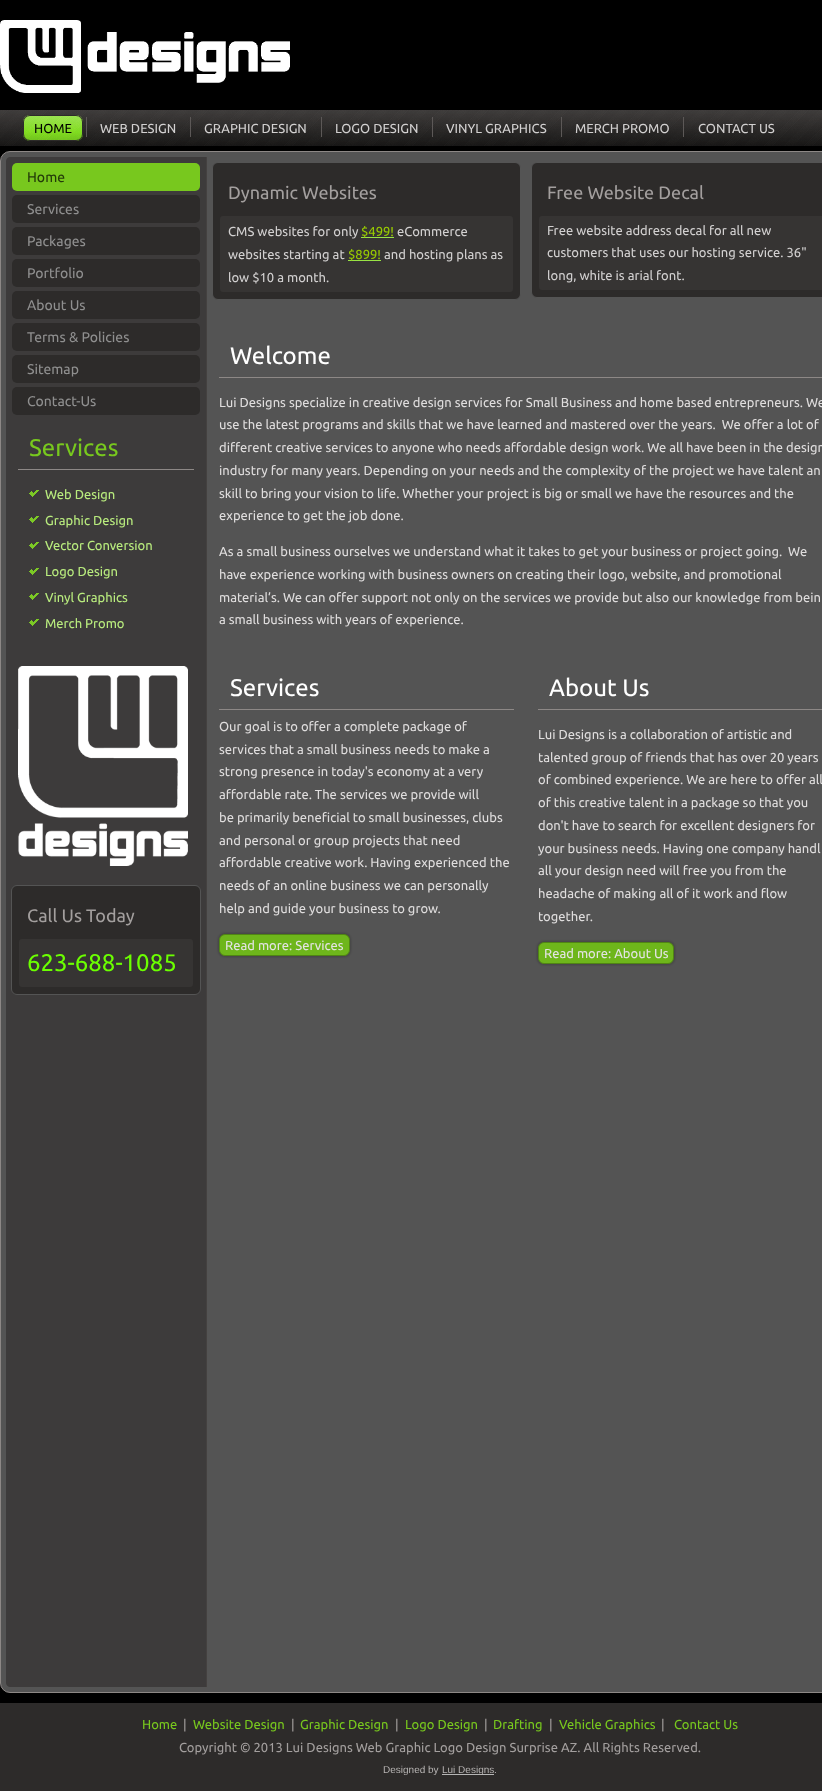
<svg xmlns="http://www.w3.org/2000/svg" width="822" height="1791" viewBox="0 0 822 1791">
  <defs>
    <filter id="blur1" x="-50%" y="-200%" width="200%" height="500%"><feGaussianBlur stdDeviation="1"/></filter>
  </defs>
  <rect width="100%" height="100%" fill="#000000"/>
  <image x="0" y="20" width="290" height="73" href="img1.png"/>
  <image x="0" y="110" width="822" height="36" href="img2.png"/>
  <image x="23" y="115" width="60" height="26" href="img3.png"/>
  <rect x="23.5" y="115.5" width="59" height="25" rx="6.5" fill="none" stroke="#2d2b2a"/>
  <text x="34" y="133" font-family="Ubuntu" font-size="13" fill="#000000">HOME</text>
  <rect x="86" y="117" width="1" height="20" fill="#5c5857"/>
  <text x="100" y="133" font-family="Ubuntu" font-size="13" fill="#d2d0d0">WEB DESIGN</text>
  <rect x="190" y="117" width="1" height="20" fill="#5c5857"/>
  <text x="204" y="133" font-family="Ubuntu" font-size="13" fill="#d2d0d0">GRAPHIC DESIGN</text>
  <rect x="321" y="117" width="1" height="20" fill="#5c5857"/>
  <text x="335" y="133" font-family="Ubuntu" font-size="13" fill="#d2d0d0">LOGO DESIGN</text>
  <rect x="432" y="117" width="1" height="20" fill="#5c5857"/>
  <text x="446" y="133" font-family="Ubuntu" font-size="13" fill="#d2d0d0">VINYL GRAPHICS</text>
  <rect x="561" y="117" width="1" height="20" fill="#5c5857"/>
  <text x="575" y="133" font-family="Ubuntu" font-size="13" fill="#d2d0d0">MERCH PROMO</text>
  <rect x="683" y="117" width="1" height="20" fill="#5c5857"/>
  <text x="698" y="133" font-family="Ubuntu" font-size="13" fill="#d2d0d0">CONTACT US</text>
  <rect x="0.5" y="151.5" width="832" height="1541" rx="9.5" fill="#545454" stroke="#8d8886"/>
  <path d="M10 157H207V1687H10C8 1687 6 1685 6 1683V161C6 159 8 157 10 157Z" fill="#3d3b3b"/>
  <rect x="206" y="157" width="1" height="1530" fill="#444140"/>
  <rect x="12" y="163" width="188" height="28" rx="5" fill="#78c81e"/>
  <text x="27" y="182" font-family="Ubuntu" font-size="14" fill="#233a09">Home</text>
  <rect x="12" y="195" width="188" height="28" rx="5" fill="#2d2b2a"/>
  <text x="27" y="214" font-family="Ubuntu" font-size="14" fill="#8f8f8f">Services</text>
  <rect x="12" y="227" width="188" height="28" rx="5" fill="#2d2b2a"/>
  <text x="27" y="246" font-family="Ubuntu" font-size="14" fill="#8f8f8f">Packages</text>
  <rect x="12" y="259" width="188" height="28" rx="5" fill="#2d2b2a"/>
  <text x="27" y="278" font-family="Ubuntu" font-size="14" fill="#8f8f8f">Portfolio</text>
  <rect x="12" y="291" width="188" height="28" rx="5" fill="#2d2b2a"/>
  <text x="27" y="310" font-family="Ubuntu" font-size="14" fill="#8f8f8f">About Us</text>
  <rect x="12" y="323" width="188" height="28" rx="5" fill="#2d2b2a"/>
  <text x="27" y="342" font-family="Ubuntu" font-size="14" fill="#8f8f8f">Terms &amp; Policies</text>
  <rect x="12" y="355" width="188" height="28" rx="5" fill="#2d2b2a"/>
  <text x="27" y="374" font-family="Ubuntu" font-size="14" fill="#8f8f8f">Sitemap</text>
  <rect x="12" y="387" width="188" height="28" rx="5" fill="#2d2b2a"/>
  <text x="27" y="406" font-family="Ubuntu" font-size="14" fill="#8f8f8f">Contact-Us</text>
  <rect x="18" y="469" width="176" height="1" fill="#8d8886"/>
  <text x="29" y="456" font-family="Ubuntu" font-size="24" fill="#78c81e">Services</text>
  <image x="29" y="490" width="10" height="7" href="img4.png"/>
  <text x="45" y="499" font-family="Ubuntu" font-size="13" fill="#b9ec7e">Web Design</text>
  <image x="29" y="516" width="10" height="7" href="img4.png"/>
  <text x="45" y="525" font-family="Ubuntu" font-size="13" fill="#b9ec7e">Graphic Design</text>
  <image x="29" y="542" width="10" height="7" href="img4.png"/>
  <text x="45" y="550" font-family="Ubuntu" font-size="13" fill="#b9ec7e">Vector Conversion</text>
  <image x="29" y="568" width="10" height="7" href="img4.png"/>
  <text x="45" y="576" font-family="Ubuntu" font-size="13" fill="#b9ec7e">Logo Design</text>
  <image x="29" y="593" width="10" height="7" href="img4.png"/>
  <text x="45" y="602" font-family="Ubuntu" font-size="13" fill="#b9ec7e">Vinyl Graphics</text>
  <image x="29" y="619" width="10" height="7" href="img4.png"/>
  <text x="45" y="628" font-family="Ubuntu" font-size="13" fill="#b9ec7e">Merch Promo</text>
  <image x="18" y="666" width="170" height="200" href="img5.png"/>
  <rect x="11.5" y="885.5" width="189" height="109" rx="5.5" fill="#2d2b2a" stroke="#545454"/>
  <text x="27" y="922" font-family="Ubuntu" font-size="18" fill="#a39f9e">Call Us Today</text>
  <rect x="19" y="939" width="174" height="48" rx="3" fill="#363433"/>
  <text x="27" y="971" font-family="Ubuntu" font-size="24" fill="#6bff00">623-688-1085</text>
  <rect x="212.5" y="162.5" width="308" height="137" rx="5.5" fill="#2d2b2a" stroke="#545454"/>
  <text x="228" y="199" font-family="Ubuntu" font-size="18" fill="#a39f9e">Dynamic Websites</text>
  <rect x="220" y="216" width="293" height="76" rx="3" fill="#363433"/>
  <text x="228" y="236" font-family="Ubuntu" font-size="13" fill="#d2d0d0">CMS websites for only</text>
  <rect x="361" y="237" width="33" height="1" fill="#99e345"/>
  <text x="361" y="236" font-family="Ubuntu" font-size="13" fill="#99cc00">$499!</text>
  <text x="397" y="236" font-family="Ubuntu" font-size="13" fill="#d2d0d0">eCommerce</text>
  <text x="228" y="259" font-family="Ubuntu" font-size="13" fill="#d2d0d0">websites starting at</text>
  <rect x="348" y="260" width="33" height="1" fill="#99e345"/>
  <text x="348" y="259" font-family="Ubuntu" font-size="13" fill="#99cc00">$899!</text>
  <text x="384" y="259" font-family="Ubuntu" font-size="13" fill="#d2d0d0">and hosting plans as</text>
  <text x="228" y="282" font-family="Ubuntu" font-size="13" fill="#d2d0d0">low $10 a month.</text>
  <rect x="531.5" y="162.5" width="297" height="135" rx="5.5" fill="#2d2b2a" stroke="#545454"/>
  <text x="547" y="199" font-family="Ubuntu" font-size="18" fill="#a39f9e">Free Website Decal</text>
  <rect x="539" y="216" width="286" height="74" rx="3" fill="#363433"/>
  <text x="547" y="235" font-family="Ubuntu" font-size="13" fill="#d2d0d0">Free website address decal for all new</text>
  <text x="547" y="257" font-family="Ubuntu" font-size="13" fill="#d2d0d0">customers that uses our hosting service. 36"</text>
  <text x="547" y="280" font-family="Ubuntu" font-size="13" fill="#d2d0d0">long, white is arial font.</text>
  <rect x="219" y="377" width="603" height="1" fill="#8d8886"/>
  <text x="230" y="364" font-family="Ubuntu" font-size="24" fill="#ffffff">Welcome</text>
  <text x="219" y="407" font-family="Ubuntu" font-size="13" fill="#dfdddd">Lui Designs specialize in creative design services for Small Business and home based entrepreneurs. We</text>
  <text x="219" y="429" font-family="Ubuntu" font-size="13" fill="#dfdddd" xml:space="preserve">use the latest programs and skills that we have learned and mastered over the years.  We offer a lot of</text>
  <text x="219" y="452" font-family="Ubuntu" font-size="13" fill="#dfdddd">different creative services to anyone who needs affordable design work. We all have been in the design</text>
  <text x="219" y="475" font-family="Ubuntu" font-size="13" fill="#dfdddd">industry for many years. Depending on your needs and the complexity of the project we have talent an</text>
  <text x="219" y="498" font-family="Ubuntu" font-size="13" fill="#dfdddd">skill to bring your vision to life. Whether your project is big or small we have the resources and the</text>
  <text x="219" y="520" font-family="Ubuntu" font-size="13" fill="#dfdddd">experience to get the job done.</text>
  <text x="219" y="556" font-family="Ubuntu" font-size="13" fill="#dfdddd" xml:space="preserve">As a small business ourselves we understand what it takes to get your business or project going.  We</text>
  <text x="219" y="579" font-family="Ubuntu" font-size="13" fill="#dfdddd">have experience working with business owners on creating their logo, website, and promotional</text>
  <text x="219" y="602" font-family="Ubuntu" font-size="13" fill="#dfdddd">material’s. We can offer support not only on the services we provide but also our knowledge from bein</text>
  <text x="219" y="624" font-family="Ubuntu" font-size="13" fill="#dfdddd">a small business with years of experience.</text>
  <rect x="219" y="709" width="295" height="1" fill="#8d8886"/>
  <text x="230" y="696" font-family="Ubuntu" font-size="24" fill="#ffffff">Services</text>
  <text x="219" y="731" font-family="Ubuntu" font-size="13" fill="#dfdddd">Our goal is to offer a complete package of</text>
  <text x="219" y="754" font-family="Ubuntu" font-size="13" fill="#dfdddd">services that a small business needs to make a</text>
  <text x="219" y="776" font-family="Ubuntu" font-size="13" fill="#dfdddd">strong presence in today's economy at a very</text>
  <text x="219" y="799" font-family="Ubuntu" font-size="13" fill="#dfdddd">affordable rate. The services we provide will</text>
  <text x="219" y="822" font-family="Ubuntu" font-size="13" fill="#dfdddd">be primarily beneficial to small businesses, clubs</text>
  <text x="219" y="845" font-family="Ubuntu" font-size="13" fill="#dfdddd">and personal or group projects that need</text>
  <text x="219" y="867" font-family="Ubuntu" font-size="13" fill="#dfdddd">affordable creative work. Having experienced the</text>
  <text x="219" y="890" font-family="Ubuntu" font-size="13" fill="#dfdddd">needs of an online business we can personally</text>
  <text x="219" y="913" font-family="Ubuntu" font-size="13" fill="#dfdddd">help and guide your business to grow.</text>
  <rect x="218" y="933" width="133" height="24" rx="7" fill="#000000" fill-opacity="0.2" filter="url(#blur1)"/>
  <rect x="219.5" y="934.5" width="130" height="21" rx="5.5" fill="#6eb61b" stroke="#508514"/>
  <text x="225" y="950" font-family="Ubuntu" font-size="13" fill="#e3e3e3">Read more: Services</text>
  <rect x="538" y="709" width="284" height="1" fill="#8d8886"/>
  <text x="549" y="696" font-family="Ubuntu" font-size="24" fill="#ffffff">About Us</text>
  <text x="538" y="739" font-family="Ubuntu" font-size="13" fill="#dfdddd">Lui Designs is a collaboration of artistic and</text>
  <text x="538" y="762" font-family="Ubuntu" font-size="13" fill="#dfdddd">talented group of friends that has over 20 years</text>
  <text x="538" y="784" font-family="Ubuntu" font-size="13" fill="#dfdddd">of combined experience. We are here to offer all</text>
  <text x="538" y="807" font-family="Ubuntu" font-size="13" fill="#dfdddd">of this creative talent in a package so that you</text>
  <text x="538" y="830" font-family="Ubuntu" font-size="13" fill="#dfdddd">don't have to search for excellent designers for</text>
  <text x="538" y="853" font-family="Ubuntu" font-size="13" fill="#dfdddd">your business needs. Having one company handl</text>
  <text x="538" y="875" font-family="Ubuntu" font-size="13" fill="#dfdddd">all your design need will free you from the</text>
  <text x="538" y="898" font-family="Ubuntu" font-size="13" fill="#dfdddd">headache of making all of it work and flow</text>
  <text x="538" y="921" font-family="Ubuntu" font-size="13" fill="#dfdddd">together.</text>
  <rect x="537" y="941" width="138" height="24" rx="7" fill="#000000" fill-opacity="0.2" filter="url(#blur1)"/>
  <rect x="538.5" y="942.5" width="135" height="21" rx="5.5" fill="#6eb61b" stroke="#508514"/>
  <text x="544" y="958" font-family="Ubuntu" font-size="13" fill="#e3e3e3">Read more: About Us</text>
  <rect x="0" y="1703" width="822" height="88" fill="#2d2b2a"/>
  <text x="142" y="1729" font-family="Ubuntu" font-size="13" fill="#78c81e">Home</text>
  <text x="183" y="1729" font-family="Ubuntu" font-size="13" fill="#a39f9e">|</text>
  <text x="193" y="1729" font-family="Ubuntu" font-size="13" fill="#78c81e">Website Design</text>
  <text x="291" y="1729" font-family="Ubuntu" font-size="13" fill="#a39f9e">|</text>
  <text x="300" y="1729" font-family="Ubuntu" font-size="13" fill="#78c81e">Graphic Design</text>
  <text x="395" y="1729" font-family="Ubuntu" font-size="13" fill="#a39f9e">|</text>
  <text x="405" y="1729" font-family="Ubuntu" font-size="13" fill="#78c81e">Logo Design</text>
  <text x="484" y="1729" font-family="Ubuntu" font-size="13" fill="#a39f9e">|</text>
  <text x="493" y="1729" font-family="Ubuntu" font-size="13" fill="#78c81e">Drafting</text>
  <text x="549" y="1729" font-family="Ubuntu" font-size="13" fill="#a39f9e">|</text>
  <text x="559" y="1729" font-family="Ubuntu" font-size="13" fill="#78c81e">Vehicle Graphics</text>
  <text x="661" y="1729" font-family="Ubuntu" font-size="13" fill="#a39f9e">|</text>
  <text x="674" y="1729" font-family="Ubuntu" font-size="13" fill="#78c81e">Contact Us</text>
  <text x="179" y="1752" font-family="Ubuntu" font-size="13" fill="#a39f9e">Copyright © 2013 Lui Designs Web Graphic Logo Design Surprise AZ. All Rights Reserved.</text>
  <text x="383" y="1773" font-family="Liberation Sans" font-size="10" fill="#b7b4b3">Designed by</text>
  <rect x="442" y="1774" width="52" height="1" fill="#b5b5b5"/>
  <text x="442" y="1773" font-family="Liberation Sans" font-size="10" fill="#b7b4b3">Lui Designs</text>
  <text x="494" y="1773" font-family="Liberation Sans" font-size="10" fill="#b7b4b3">.</text>
</svg>
